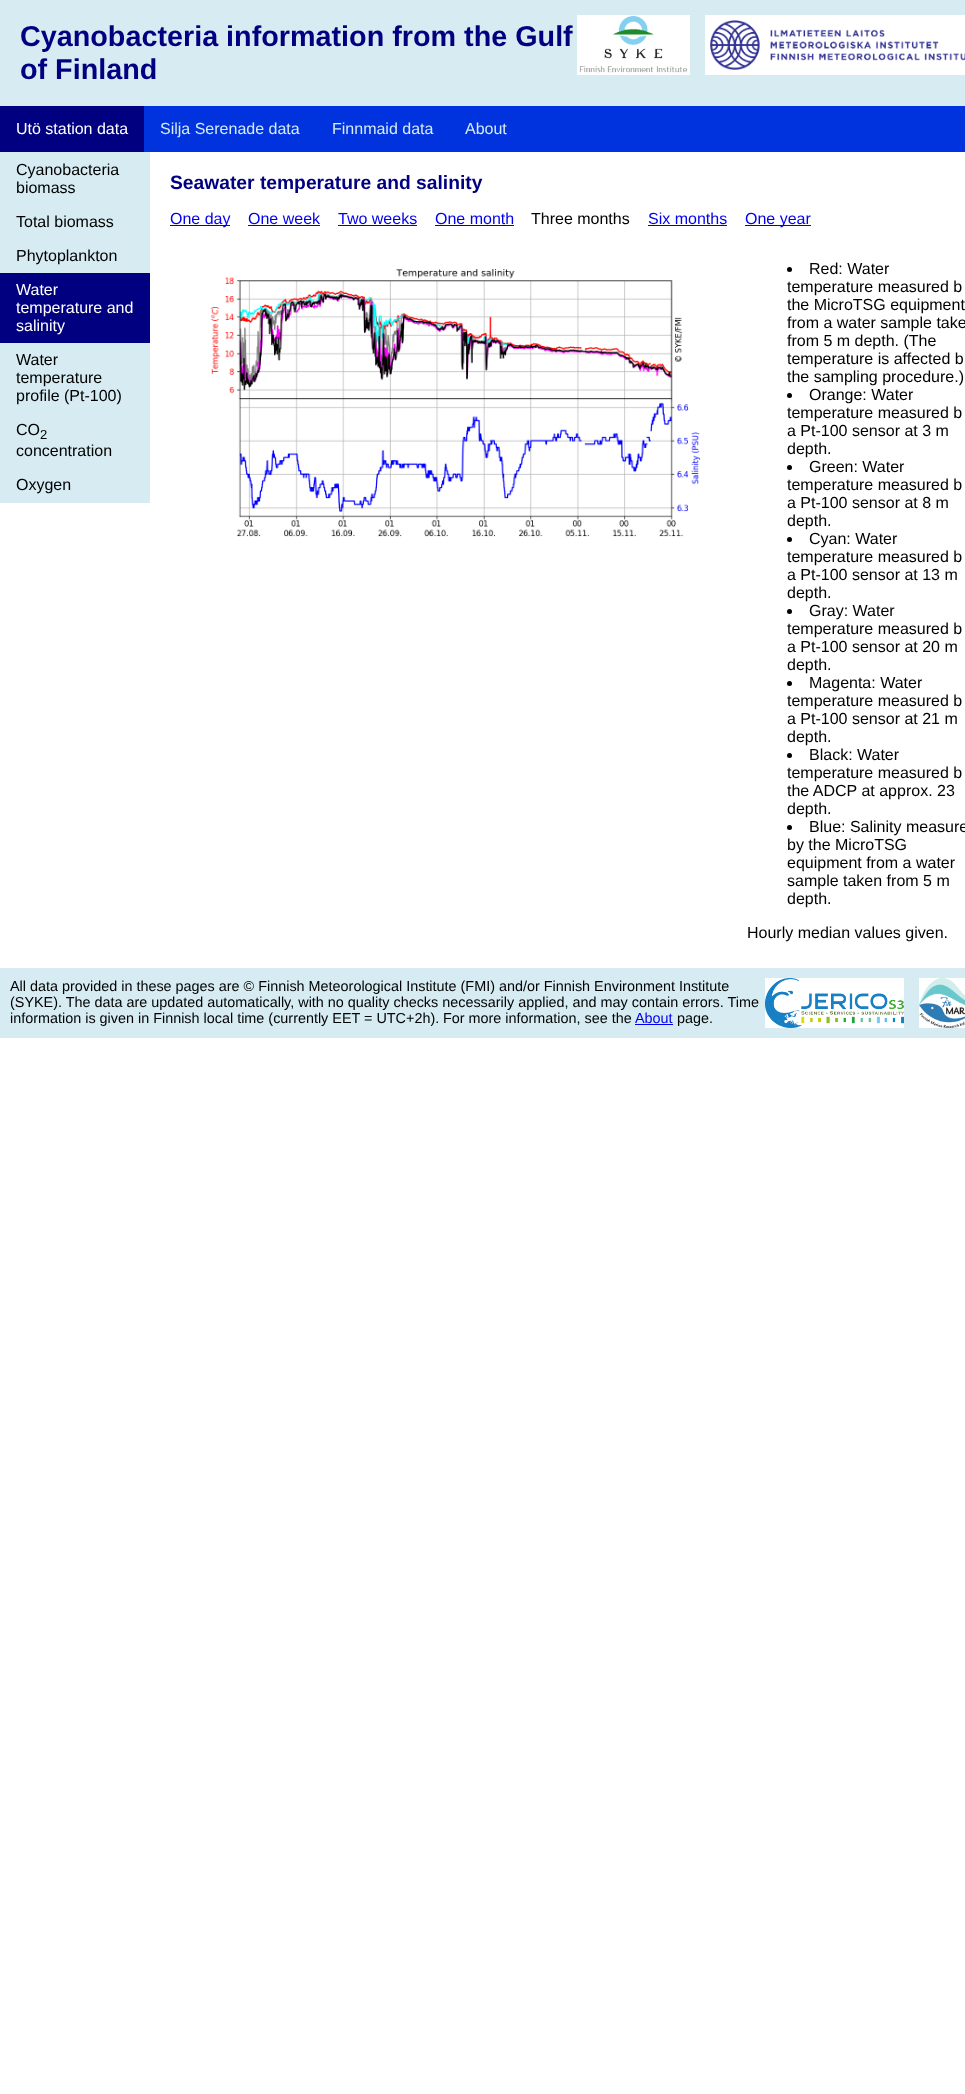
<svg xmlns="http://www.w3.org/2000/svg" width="965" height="2094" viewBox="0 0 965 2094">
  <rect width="100%" height="100%" fill="#ffffff"/>
  <rect x="0" y="0" width="965" height="106" fill="#d6ebf2"/>
  <text x="20" y="46" font-family="Liberation Sans" font-size="28.75" font-weight="bold" fill="#000080">Cyanobacteria information from the Gulf</text>
  <text x="20" y="79" font-family="Liberation Sans" font-size="28.75" font-weight="bold" fill="#000080">of Finland</text>
  <rect x="577" y="15" width="113" height="60" fill="#ffffff"/>
  <image x="579" y="15" width="109" height="58" href="img1.png"/>
  <rect x="705" y="15" width="260" height="60" fill="#ffffff"/>
  <image x="710" y="20" width="255" height="50" href="img2.png"/>
  <rect x="144" y="106" width="821" height="46" fill="#0033dd"/>
  <rect x="0" y="106" width="144" height="46" fill="#000080"/>
  <text x="16" y="134" font-family="Liberation Sans" font-size="16" fill="#ffffff">Utö station data</text>
  <text x="160" y="134" font-family="Liberation Sans" font-size="16" fill="#d6ebf2">Silja Serenade data</text>
  <text x="332" y="134" font-family="Liberation Sans" font-size="16" fill="#d6ebf2">Finnmaid data</text>
  <text x="465" y="134" font-family="Liberation Sans" font-size="16" fill="#d6ebf2">About</text>
  <rect x="0" y="152" width="150" height="351" fill="#d6ebf2"/>
  <text x="16" y="175" font-family="Liberation Sans" font-size="16" fill="#000000">Cyanobacteria</text>
  <text x="16" y="193" font-family="Liberation Sans" font-size="16" fill="#000000">biomass</text>
  <text x="16" y="227" font-family="Liberation Sans" font-size="16" fill="#000000">Total biomass</text>
  <text x="16" y="261" font-family="Liberation Sans" font-size="16" fill="#000000">Phytoplankton</text>
  <rect x="0" y="273" width="150" height="70" fill="#000080"/>
  <text x="16" y="295" font-family="Liberation Sans" font-size="16" fill="#ffffff">Water</text>
  <text x="16" y="313" font-family="Liberation Sans" font-size="16" fill="#ffffff">temperature and</text>
  <text x="16" y="331" font-family="Liberation Sans" font-size="16" fill="#ffffff">salinity</text>
  <text x="16" y="365" font-family="Liberation Sans" font-size="16" fill="#000000">Water</text>
  <text x="16" y="383" font-family="Liberation Sans" font-size="16" fill="#000000">temperature</text>
  <text x="16" y="401" font-family="Liberation Sans" font-size="16" fill="#000000">profile (Pt-100)</text>
  <text x="16" y="435" font-family="Liberation Sans" font-size="16" fill="#000000">CO</text>
  <text x="40" y="439" font-family="Liberation Sans" font-size="13" fill="#000000">2</text>
  <text x="16" y="456" font-family="Liberation Sans" font-size="16" fill="#000000">concentration</text>
  <text x="16" y="490" font-family="Liberation Sans" font-size="16" fill="#000000">Oxygen</text>
  <text x="170" y="189" font-family="Liberation Sans" font-size="19.25" font-weight="bold" fill="#000080">Seawater temperature and salinity</text>
  <rect x="170" y="225" width="60" height="1" fill="#0000ee"/>
  <text x="170" y="224" font-family="Liberation Sans" font-size="16" fill="#0000ee">One day</text>
  <text x="248" y="224" font-family="Liberation Sans" font-size="16" fill="#0000ee">One week</text>
  <rect x="248" y="225" width="72" height="1" fill="#0000ee"/>
  <text x="338" y="224" font-family="Liberation Sans" font-size="16" fill="#0000ee">Two weeks</text>
  <rect x="338" y="225" width="79" height="1" fill="#0000ee"/>
  <text x="435" y="224" font-family="Liberation Sans" font-size="16" fill="#0000ee">One month</text>
  <rect x="435" y="225" width="79" height="1" fill="#0000ee"/>
  <text x="531" y="224" font-family="Liberation Sans" font-size="16" fill="#000000">Three months</text>
  <text x="648" y="224" font-family="Liberation Sans" font-size="16" fill="#0000ee">Six months</text>
  <rect x="648" y="225" width="79" height="1" fill="#0000ee"/>
  <rect x="745" y="225" width="66" height="1" fill="#0000ee"/>
  <text x="745" y="224" font-family="Liberation Sans" font-size="16" fill="#0000ee">One year</text>
  <image x="210" y="269" width="491" height="268" href="img3.png"/>
  <circle cx="789.5" cy="269.5" r="2.5" fill="#000000"/>
  <text x="809" y="274" font-family="Liberation Sans" font-size="16" fill="#000000">Red: Water</text>
  <text x="787" y="292" font-family="Liberation Sans" font-size="16" fill="#000000">temperature measured b</text>
  <text x="787" y="310" font-family="Liberation Sans" font-size="16" fill="#000000">the MicroTSG equipment</text>
  <text x="787" y="328" font-family="Liberation Sans" font-size="16" fill="#000000">from a water sample take</text>
  <text x="787" y="346" font-family="Liberation Sans" font-size="16" fill="#000000">from 5 m depth. (The</text>
  <text x="787" y="364" font-family="Liberation Sans" font-size="16" fill="#000000">temperature is affected b</text>
  <text x="787" y="382" font-family="Liberation Sans" font-size="16" fill="#000000">the sampling procedure.)</text>
  <circle cx="789.5" cy="395.5" r="2.5" fill="#000000"/>
  <text x="809" y="400" font-family="Liberation Sans" font-size="16" fill="#000000">Orange: Water</text>
  <text x="787" y="418" font-family="Liberation Sans" font-size="16" fill="#000000">temperature measured b</text>
  <text x="787" y="436" font-family="Liberation Sans" font-size="16" fill="#000000">a Pt-100 sensor at 3 m</text>
  <text x="787" y="454" font-family="Liberation Sans" font-size="16" fill="#000000">depth.</text>
  <circle cx="789.5" cy="467.5" r="2.5" fill="#000000"/>
  <text x="809" y="472" font-family="Liberation Sans" font-size="16" fill="#000000">Green: Water</text>
  <text x="787" y="490" font-family="Liberation Sans" font-size="16" fill="#000000">temperature measured b</text>
  <text x="787" y="508" font-family="Liberation Sans" font-size="16" fill="#000000">a Pt-100 sensor at 8 m</text>
  <text x="787" y="526" font-family="Liberation Sans" font-size="16" fill="#000000">depth.</text>
  <circle cx="789.5" cy="539.5" r="2.5" fill="#000000"/>
  <text x="809" y="544" font-family="Liberation Sans" font-size="16" fill="#000000">Cyan: Water</text>
  <text x="787" y="562" font-family="Liberation Sans" font-size="16" fill="#000000">temperature measured b</text>
  <text x="787" y="580" font-family="Liberation Sans" font-size="16" fill="#000000">a Pt-100 sensor at 13 m</text>
  <text x="787" y="598" font-family="Liberation Sans" font-size="16" fill="#000000">depth.</text>
  <circle cx="789.5" cy="611.5" r="2.5" fill="#000000"/>
  <text x="809" y="616" font-family="Liberation Sans" font-size="16" fill="#000000">Gray: Water</text>
  <text x="787" y="634" font-family="Liberation Sans" font-size="16" fill="#000000">temperature measured b</text>
  <text x="787" y="652" font-family="Liberation Sans" font-size="16" fill="#000000">a Pt-100 sensor at 20 m</text>
  <text x="787" y="670" font-family="Liberation Sans" font-size="16" fill="#000000">depth.</text>
  <circle cx="789.5" cy="683.5" r="2.5" fill="#000000"/>
  <text x="809" y="688" font-family="Liberation Sans" font-size="16" fill="#000000">Magenta: Water</text>
  <text x="787" y="706" font-family="Liberation Sans" font-size="16" fill="#000000">temperature measured b</text>
  <text x="787" y="724" font-family="Liberation Sans" font-size="16" fill="#000000">a Pt-100 sensor at 21 m</text>
  <text x="787" y="742" font-family="Liberation Sans" font-size="16" fill="#000000">depth.</text>
  <circle cx="789.5" cy="755.5" r="2.5" fill="#000000"/>
  <text x="809" y="760" font-family="Liberation Sans" font-size="16" fill="#000000">Black: Water</text>
  <text x="787" y="778" font-family="Liberation Sans" font-size="16" fill="#000000">temperature measured b</text>
  <text x="787" y="796" font-family="Liberation Sans" font-size="16" fill="#000000">the ADCP at approx. 23</text>
  <text x="787" y="814" font-family="Liberation Sans" font-size="16" fill="#000000">depth.</text>
  <circle cx="789.5" cy="827.5" r="2.5" fill="#000000"/>
  <text x="809" y="832" font-family="Liberation Sans" font-size="16" fill="#000000">Blue: Salinity measure</text>
  <text x="787" y="850" font-family="Liberation Sans" font-size="16" fill="#000000">by the MicroTSG</text>
  <text x="787" y="868" font-family="Liberation Sans" font-size="16" fill="#000000">equipment from a water</text>
  <text x="787" y="886" font-family="Liberation Sans" font-size="16" fill="#000000">sample taken from 5 m</text>
  <text x="787" y="904" font-family="Liberation Sans" font-size="16" fill="#000000">depth.</text>
  <text x="747" y="938" font-family="Liberation Sans" font-size="16" fill="#000000">Hourly median values given.</text>
  <rect x="0" y="968" width="965" height="70" fill="#d6ebf2"/>
  <text x="10" y="991" font-family="Liberation Sans" font-size="14.4" fill="#000000">All data provided in these pages are © Finnish Meteorological Institute (FMI) and/or Finnish Environment Institute</text>
  <text x="10" y="1007" font-family="Liberation Sans" font-size="14.4" fill="#000000">(SYKE). The data are updated automatically, with no quality checks necessarily applied, and may contain errors. Time</text>
  <text x="10" y="1023" font-family="Liberation Sans" font-size="14.4" fill="#000000">information is given in Finnish local time (currently EET = UTC+2h).</text>
  <text x="443" y="1023" font-family="Liberation Sans" font-size="14.4" fill="#000000">For more information, see the</text>
  <text x="635" y="1023" font-family="Liberation Sans" font-size="14.4" fill="#0000ee">About</text>
  <rect x="635" y="1024" width="38" height="1" fill="#0000ee"/>
  <text x="677" y="1023" font-family="Liberation Sans" font-size="14.4" fill="#000000">page.</text>
  <rect x="765" y="978" width="139" height="50" fill="#ffffff"/>
  <image x="765" y="978" width="139" height="50" href="img4.png"/>
  <rect x="919" y="978" width="46" height="50" fill="#ffffff"/>
  <image x="919" y="978" width="46" height="50" href="img5.png"/>
</svg>
